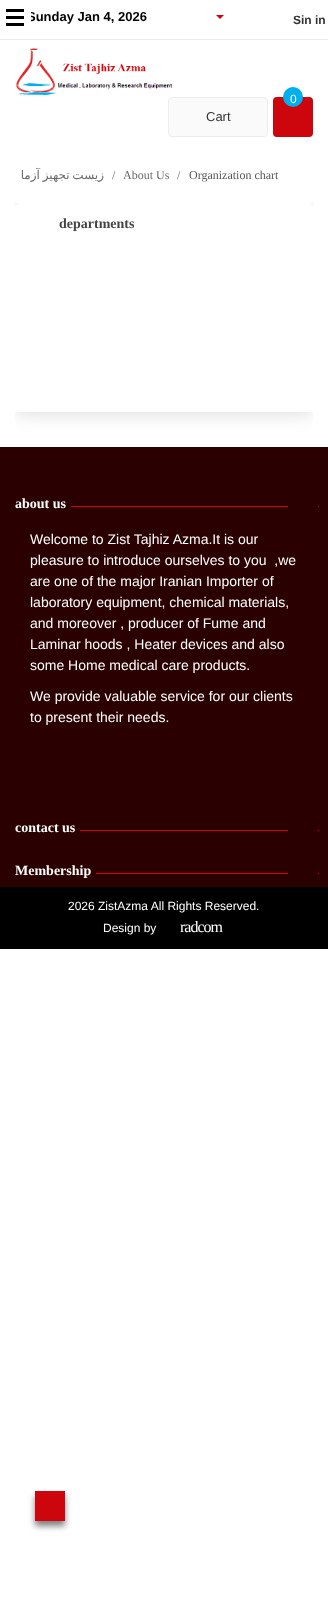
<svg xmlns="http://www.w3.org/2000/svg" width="328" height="1618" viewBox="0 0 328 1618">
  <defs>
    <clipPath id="clip1"><rect x="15" y="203" width="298" height="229"/></clipPath>
    <clipPath id="clip2"><path d="M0 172H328V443H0ZM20 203H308C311 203 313 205 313 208V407C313 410 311 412 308 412H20C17 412 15 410 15 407V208C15 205 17 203 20 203Z" clip-rule="evenodd"/></clipPath>
    <filter id="blur1" x="-50%" y="-200%" width="200%" height="500%"><feGaussianBlur stdDeviation="10"/></filter>
    <filter id="blur2" x="-50%" y="-200%" width="200%" height="500%"><feGaussianBlur stdDeviation="3"/></filter>
  </defs>
  <rect width="100%" height="100%" fill="#ffffff"/>
  <rect x="0" y="39" width="328" height="1" fill="#f0ecec"/>
  <text x="27" y="21" font-family="Liberation Sans" font-size="13" font-weight="bold" fill="#000000">Sunday Jan 4, 2026</text>
  <rect x="27" y="12" width="4" height="10" fill="#ffffff"/>
  <rect x="6" y="9" width="18" height="3" fill="#000000"/>
  <rect x="6" y="16" width="18" height="3" fill="#000000"/>
  <rect x="6" y="23" width="18" height="3" fill="#000000"/>
  <path d="M216 15H224L220 19Z" fill="#cd060d"/>
  <text x="293" y="24" font-family="Liberation Sans" font-size="12" font-weight="bold" fill="#333333">Sin in</text>
  <image x="16" y="48" width="157" height="48" href="img1.png"/>
  <rect x="273" y="97" width="40" height="40" rx="4" fill="#cd060d"/>
  <circle cx="293" cy="97" r="10" fill="#00afee"/>
  <text x="290" y="103" font-family="Liberation Sans" font-size="12" fill="#ffffff">0</text>
  <rect x="168.5" y="97.5" width="99" height="39" rx="3.5" fill="#fafafa" stroke="#f0ecec"/>
  <text x="206" y="121" font-family="Liberation Sans" font-size="13" fill="#333333">Cart</text>
  <text x="104" y="179" word-spacing="-1" font-family="DejaVu Sans" font-size="12" direction="rtl" fill="#6a6a6a">زیست تجهیز آزما</text>
  <text x="112" y="179" font-family="Liberation Serif" font-size="12" fill="#6a6a6a">/</text>
  <text x="123" y="179" font-family="Liberation Serif" font-size="12" fill="#6a6a6a">About Us</text>
  <text x="177" y="179" font-family="Liberation Serif" font-size="12" fill="#6a6a6a">/</text>
  <text x="189" y="179" font-family="Liberation Serif" font-size="12" fill="#58585a">Organization chart</text>
  <g clip-path="url(#clip1)">
    <g clip-path="url(#clip2)">
      <rect x="15" y="203" width="298" height="209" rx="5" fill="#000000" fill-opacity="0.16" filter="url(#blur1)"/>
    </g>
  </g>
  <text x="59" y="228" font-family="Liberation Serif" font-size="14" font-weight="bold" fill="#444444">departments</text>
  <rect x="15" y="408" width="298" height="4" fill="#ffffff"/>
  <rect x="0" y="447" width="328" height="440" fill="#2a0001"/>
  <text x="15" y="508" font-family="Liberation Serif" font-size="14" font-weight="bold" fill="#ffffff">about us</text>
  <rect x="71" y="506" width="248" height="1" fill="#cd060d"/>
  <rect x="290.5" y="490.5" width="25" height="25" fill="none" stroke="#2a0001" stroke-width="5"/>
  <rect x="293" y="506" width="20" height="1" fill="#2a0001"/>
  <text x="30" y="544" font-family="Liberation Sans" font-size="14" fill="#ffffff">Welcome to Zist Tajhiz Azma.It is our</text>
  <text x="30" y="565" font-family="Liberation Sans" font-size="14" fill="#ffffff" xml:space="preserve">pleasure to introduce ourselves to you  ,we</text>
  <text x="30" y="586" font-family="Liberation Sans" font-size="14" fill="#ffffff">are one of the major Iranian Importer of</text>
  <text x="30" y="607" font-family="Liberation Sans" font-size="14" fill="#ffffff">laboratory equipment, chemical materials,</text>
  <text x="30" y="628" font-family="Liberation Sans" font-size="14" fill="#ffffff">and moreover , producer of Fume and</text>
  <text x="30" y="649" font-family="Liberation Sans" font-size="14" fill="#ffffff">Laminar hoods , Heater devices and also</text>
  <text x="30" y="670" font-family="Liberation Sans" font-size="14" fill="#ffffff">some Home medical care products.</text>
  <text x="30" y="701" font-family="Liberation Sans" font-size="14" fill="#ffffff">We provide valuable service for our clients</text>
  <text x="30" y="722" font-family="Liberation Sans" font-size="14" fill="#ffffff">to present their needs.</text>
  <text x="15" y="832" font-family="Liberation Serif" font-size="14" font-weight="bold" fill="#ffffff">contact us</text>
  <rect x="80" y="830" width="239" height="1" fill="#cd060d"/>
  <rect x="290.5" y="814.5" width="25" height="25" fill="none" stroke="#2a0001" stroke-width="5"/>
  <rect x="293" y="830" width="20" height="1" fill="#2a0001"/>
  <text x="15" y="875" font-family="Liberation Serif" font-size="14" font-weight="bold" fill="#ffffff">Membership</text>
  <rect x="96" y="873" width="223" height="1" fill="#cd060d"/>
  <rect x="290.5" y="857.5" width="25" height="25" fill="none" stroke="#2a0001" stroke-width="5"/>
  <rect x="293" y="873" width="20" height="1" fill="#2a0001"/>
  <rect x="0" y="887" width="328" height="62" fill="#000000"/>
  <text x="68" y="910" font-family="Liberation Sans" font-size="12" fill="#ffffff">2026 ZistAzma All Rights Reserved.</text>
  <text x="103" y="932" font-family="Liberation Sans" font-size="12" fill="#ffffff">Design by</text>
  <text x="180" y="932" font-family="Liberation Serif" font-size="16" letter-spacing="-1" fill="#ffffff">radcom</text>
  <rect x="35" y="1496" width="30" height="30" fill="#000000" fill-opacity="0.5" filter="url(#blur2)"/>
  <rect x="35" y="1491" width="30" height="30" fill="#cd060d"/>
</svg>
